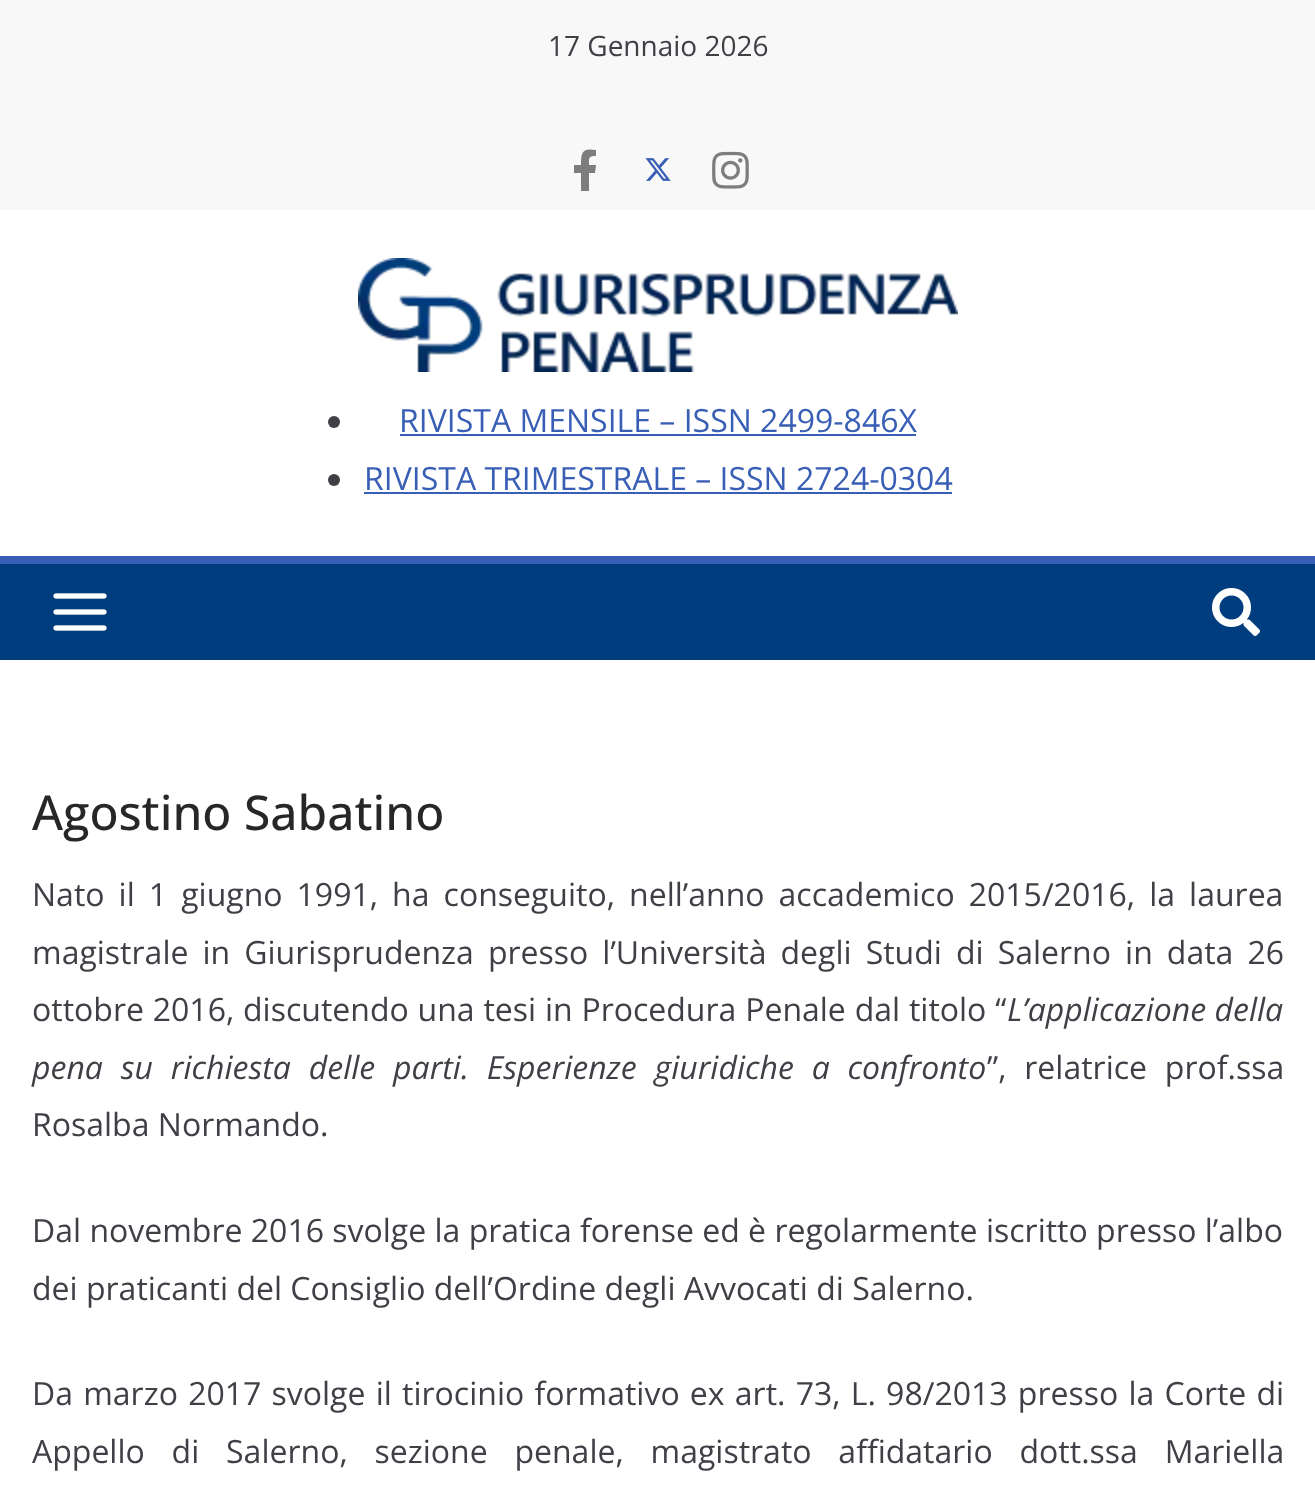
<svg xmlns="http://www.w3.org/2000/svg" width="1315" height="1493" viewBox="0 0 1315 1493">
  <rect width="100%" height="100%" fill="#f8f8f8"/>
  <text x="548" y="56" font-family="Open Sans" font-size="28" fill="#3f3f46">17 Gennaio 2026</text>
  <path d="M595 173H589V191H581V173H574V165H581C581 151 583 148 596 150V156C588 156 589 158 589 165H596Z" fill="#7d7d7d"/>
  <image x="645" y="158" width="26" height="23" href="img1.png"/>
  <image x="712" y="151" width="37" height="38" href="img2.png"/>
  <rect x="0" y="210" width="1315" height="346" fill="#ffffff"/>
  <image x="358" y="258" width="600" height="114" href="img3.png"/>
  <circle cx="334" cy="422" r="6" fill="#3f3f46"/>
  <text x="399" y="432" font-family="Open Sans" font-size="32" fill="#385eb5">RIVISTA MENSILE – ISSN 2499-846X</text>
  <rect x="400" y="434" width="516" height="2" fill="#385eb5"/>
  <circle cx="334" cy="480" r="6" fill="#3f3f46"/>
  <text x="364" y="490" font-family="Open Sans" font-size="32" fill="#385eb5">RIVISTA TRIMESTRALE – ISSN 2724-0304</text>
  <rect x="364" y="492" width="588" height="2" fill="#385eb5"/>
  <rect x="0" y="564" width="1315" height="96" fill="#003d7e"/>
  <rect x="0" y="556" width="1315" height="8" fill="#385eb5"/>
  <image x="53" y="593" width="54" height="38" href="img4.png"/>
  <image x="1212" y="588" width="48" height="48" href="img5.png"/>
  <rect x="0" y="660" width="1315" height="833" fill="#ffffff"/>
  <text x="32" y="830" font-family="Open Sans" font-size="48" font-weight="500" fill="#27272a">Agostino Sabatino</text>
  <text x="32" y="906" word-spacing="5.75" font-family="Open Sans" font-size="32" fill="#3f3f46">Nato il 1 giugno 1991, ha conseguito, nell’anno accademico 2015/2016, la laurea</text>
  <text x="32" y="964" word-spacing="5.75" font-family="Open Sans" font-size="32" fill="#3f3f46">magistrale in Giurisprudenza presso l’Università degli Studi di Salerno in data 26</text>
  <text x="32" y="1021" word-spacing="0.5" font-family="Open Sans" font-size="32" fill="#3f3f46">ottobre 2016, discutendo una tesi in Procedura Penale dal titolo “</text>
  <text x="1007" y="1021" font-family="Open Sans" font-size="32" font-style="italic" fill="#3f3f46">L’applicazione della</text>
  <text x="32" y="1079" word-spacing="9.5" font-family="Open Sans" font-size="32" font-style="italic" fill="#3f3f46">pena su richiesta delle parti. Esperienze giuridiche a confronto</text>
  <text x="987" y="1079" word-spacing="9.5" font-family="Open Sans" font-size="32" fill="#3f3f46">”, relatrice prof.ssa</text>
  <text x="32" y="1136" font-family="Open Sans" font-size="32" fill="#3f3f46">Rosalba Normando.</text>
  <text x="32" y="1242" font-family="Open Sans" font-size="32" fill="#3f3f46">Dal novembre 2016 svolge la pratica forense ed è regolarmente iscritto presso l’albo</text>
  <text x="32" y="1300" font-family="Open Sans" font-size="32" fill="#3f3f46">dei praticanti del Consiglio dell’Ordine degli Avvocati di Salerno.</text>
  <text x="32" y="1405" word-spacing="1.9" font-family="Open Sans" font-size="32" fill="#3f3f46">Da marzo 2017 svolge il tirocinio formativo ex art. 73, L. 98/2013 presso la Corte di</text>
  <text x="32" y="1463" word-spacing="18.5" font-family="Open Sans" font-size="32" fill="#3f3f46">Appello di Salerno, sezione penale, magistrato affidatario dott.ssa Mariella</text>
</svg>
